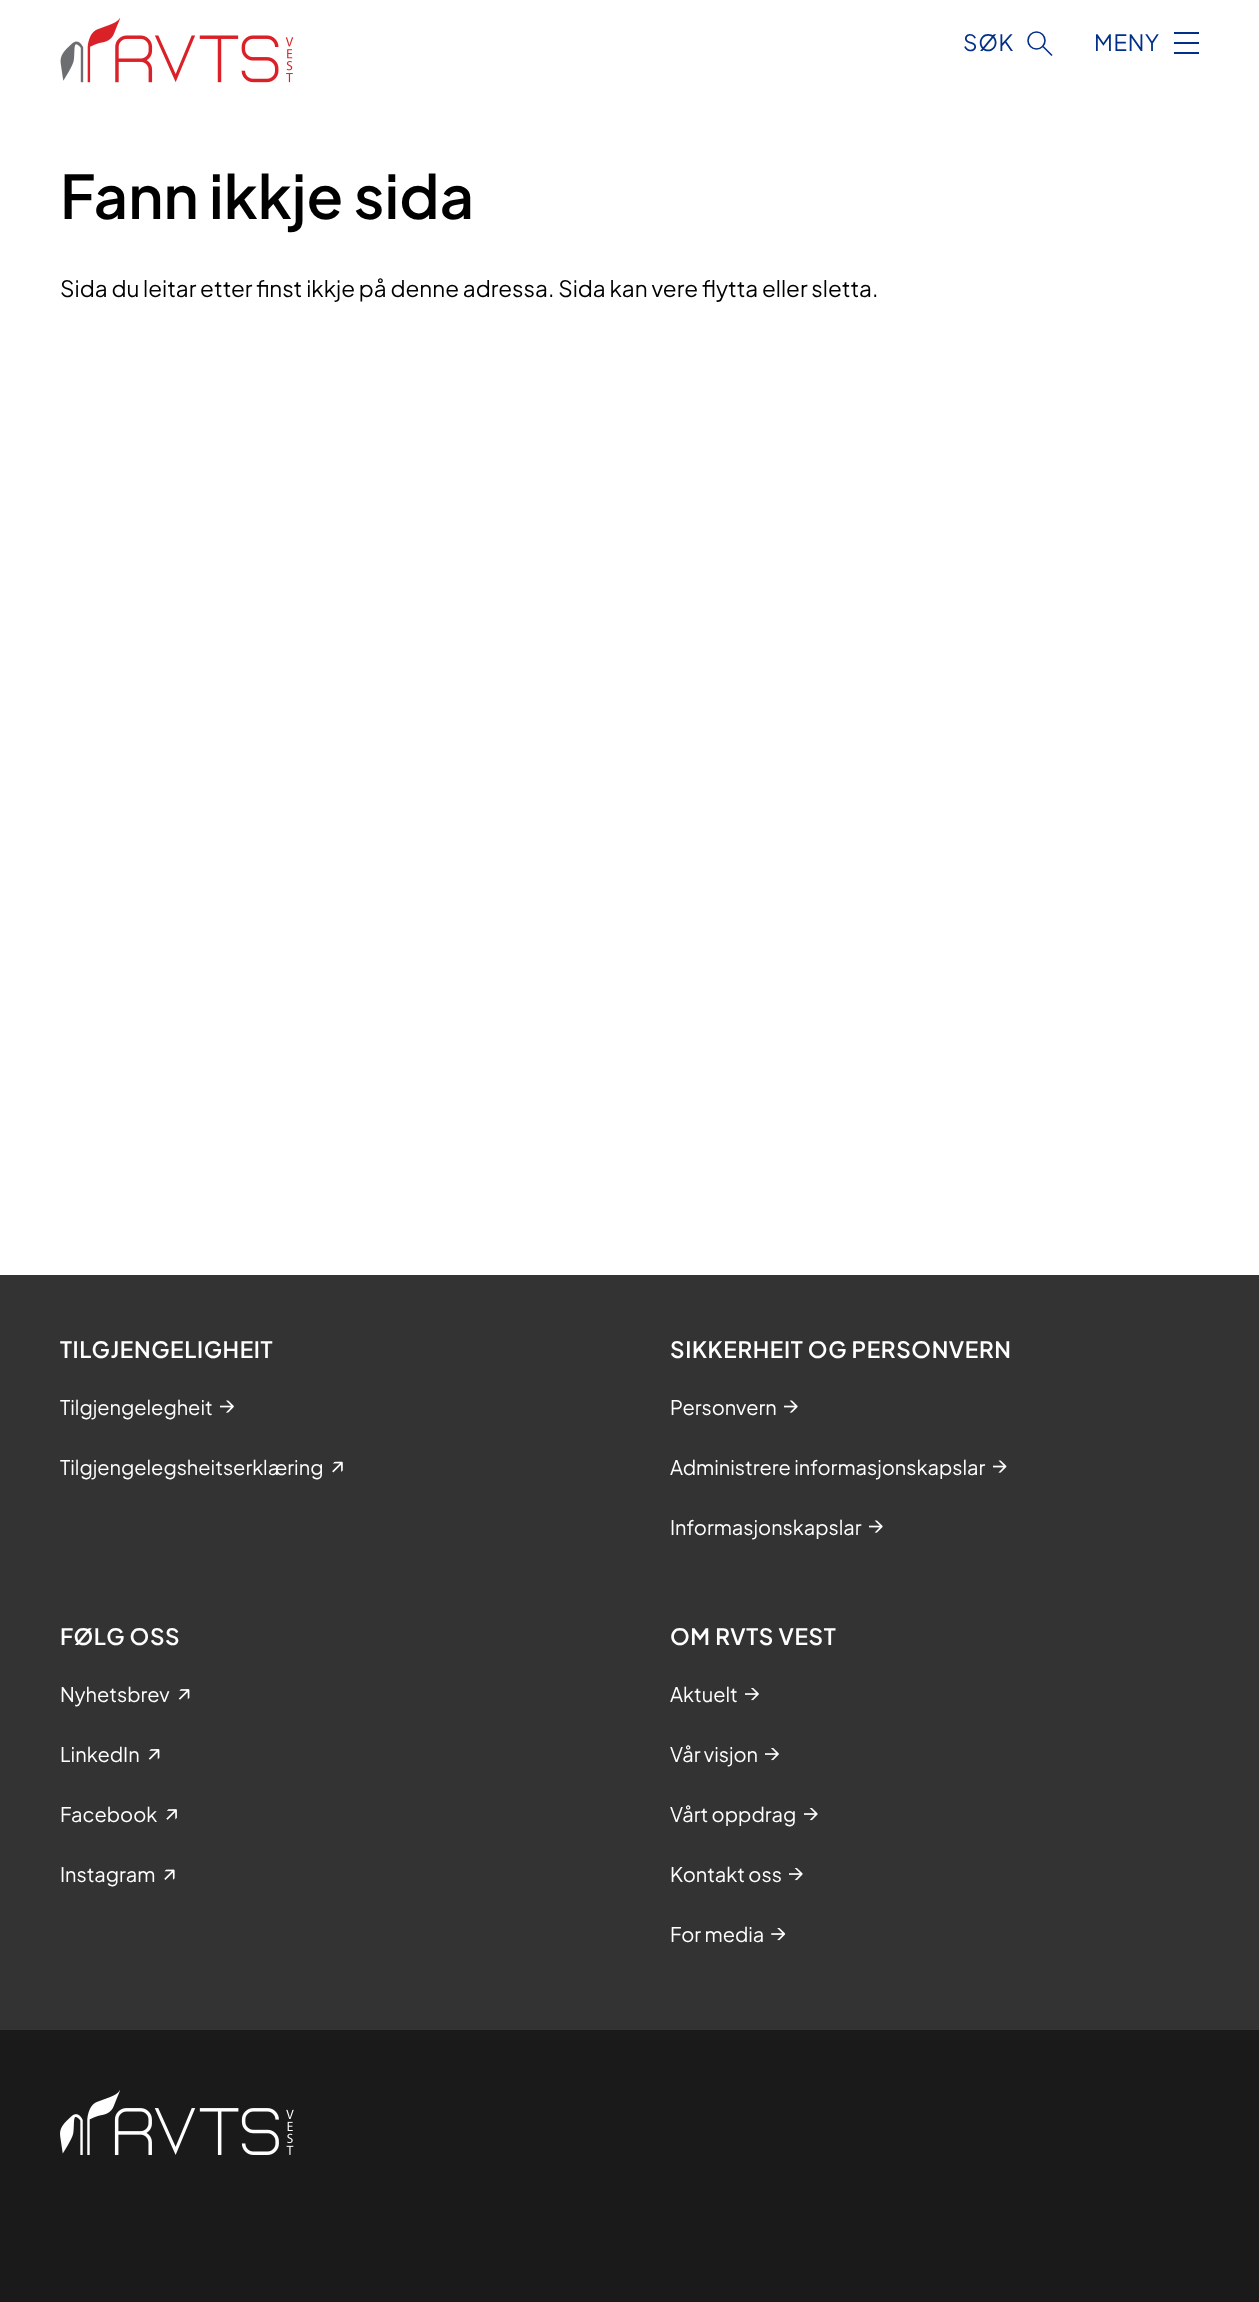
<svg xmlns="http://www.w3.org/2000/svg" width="1259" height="2302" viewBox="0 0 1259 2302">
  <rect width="100%" height="100%" fill="#ffffff"/>
  <image x="60" y="18" width="234" height="65" href="img1.png"/>
  <text x="963" y="51" font-family="Plus Jakarta Sans" font-size="22.5" letter-spacing="0.6" fill="#003087">SØK</text>
  <circle cx="1036.5" cy="40.5" r="8.5" fill="none" stroke="#003087" stroke-width="1.6"/>
  <path d="M1043 46.5L1052 55.5" fill="none" stroke="#003087" stroke-width="1.6"/>
  <text x="1094" y="51" font-family="Plus Jakarta Sans" font-size="22.5" letter-spacing="0.6" fill="#003087">MENY</text>
  <rect x="1174" y="32" width="25" height="2" fill="#003087"/>
  <rect x="1174" y="52" width="25" height="2" fill="#003087"/>
  <rect x="1174" y="42" width="25" height="2" fill="#003087"/>
  <text x="60" y="219" font-family="Plus Jakarta Sans" font-size="60" font-weight="600" fill="#000000">Fann ikkje sida</text>
  <text x="60" y="297" font-family="Plus Jakarta Sans" font-size="22.5" fill="#000000">Sida du leitar etter finst ikkje på denne adressa. Sida kan vere flytta eller sletta.</text>
  <rect x="0" y="1275" width="1259" height="755" fill="#333333"/>
  <text x="60" y="1358" font-family="Plus Jakarta Sans" font-size="22.5" font-weight="600" letter-spacing="0.6" fill="#ffffff">TILGJENGELIGHEIT</text>
  <text x="60" y="1415" font-family="Plus Jakarta Sans" font-size="20" fill="#ffffff">Tilgjengelegheit</text>
  <image x="220" y="1400" width="14" height="13" href="img2.png"/>
  <text x="60" y="1475" font-family="Plus Jakarta Sans" font-size="20" fill="#ffffff">Tilgjengelegsheitserklæring</text>
  <image x="332" y="1461" width="11" height="12" href="img3.png"/>
  <text x="670" y="1358" font-family="Plus Jakarta Sans" font-size="22.5" font-weight="600" letter-spacing="0.6" fill="#ffffff">SIKKERHEIT OG PERSONVERN</text>
  <text x="670" y="1415" font-family="Plus Jakarta Sans" font-size="20" fill="#ffffff">Personvern</text>
  <image x="784" y="1400" width="14" height="13" href="img4.png"/>
  <text x="670" y="1475" font-family="Plus Jakarta Sans" font-size="20" fill="#ffffff">Administrere informasjonskapslar</text>
  <image x="993" y="1460" width="14" height="13" href="img5.png"/>
  <text x="670" y="1535" font-family="Plus Jakarta Sans" font-size="20" fill="#ffffff">Informasjonskapslar</text>
  <image x="869" y="1520" width="14" height="13" href="img4.png"/>
  <text x="60" y="1645" font-family="Plus Jakarta Sans" font-size="22.5" font-weight="600" letter-spacing="0.6" fill="#ffffff">FØLG OSS</text>
  <text x="60" y="1702" font-family="Plus Jakarta Sans" font-size="20" fill="#ffffff">Nyhetsbrev</text>
  <image x="178" y="1689" width="12" height="11" href="img6.png"/>
  <text x="60" y="1762" font-family="Plus Jakarta Sans" font-size="20" fill="#ffffff">LinkedIn</text>
  <image x="148" y="1749" width="12" height="11" href="img7.png"/>
  <text x="60" y="1822" font-family="Plus Jakarta Sans" font-size="20" fill="#ffffff">Facebook</text>
  <image x="166" y="1809" width="11" height="11" href="img8.png"/>
  <text x="60" y="1882" font-family="Plus Jakarta Sans" font-size="20" fill="#ffffff">Instagram</text>
  <image x="164" y="1869" width="11" height="11" href="img9.png"/>
  <text x="670" y="1645" font-family="Plus Jakarta Sans" font-size="22.5" font-weight="600" letter-spacing="0.6" fill="#ffffff">OM RVTS VEST</text>
  <text x="670" y="1702" font-family="Plus Jakarta Sans" font-size="20" fill="#ffffff">Aktuelt</text>
  <image x="745" y="1688" width="14" height="13" href="img10.png"/>
  <text x="670" y="1762" font-family="Plus Jakarta Sans" font-size="20" fill="#ffffff">Vår visjon</text>
  <image x="765" y="1748" width="14" height="13" href="img10.png"/>
  <text x="670" y="1822" font-family="Plus Jakarta Sans" font-size="20" fill="#ffffff">Vårt oppdrag</text>
  <image x="804" y="1808" width="14" height="13" href="img11.png"/>
  <text x="670" y="1882" font-family="Plus Jakarta Sans" font-size="20" fill="#ffffff">Kontakt oss</text>
  <image x="789" y="1868" width="14" height="13" href="img11.png"/>
  <text x="670" y="1942" font-family="Plus Jakarta Sans" font-size="20" fill="#ffffff">For media</text>
  <image x="771" y="1928" width="15" height="13" href="img12.png"/>
  <rect x="0" y="2030" width="1259" height="272" fill="#1a1a1a"/>
  <image x="60" y="2090" width="234" height="65" href="img13.png"/>
</svg>
